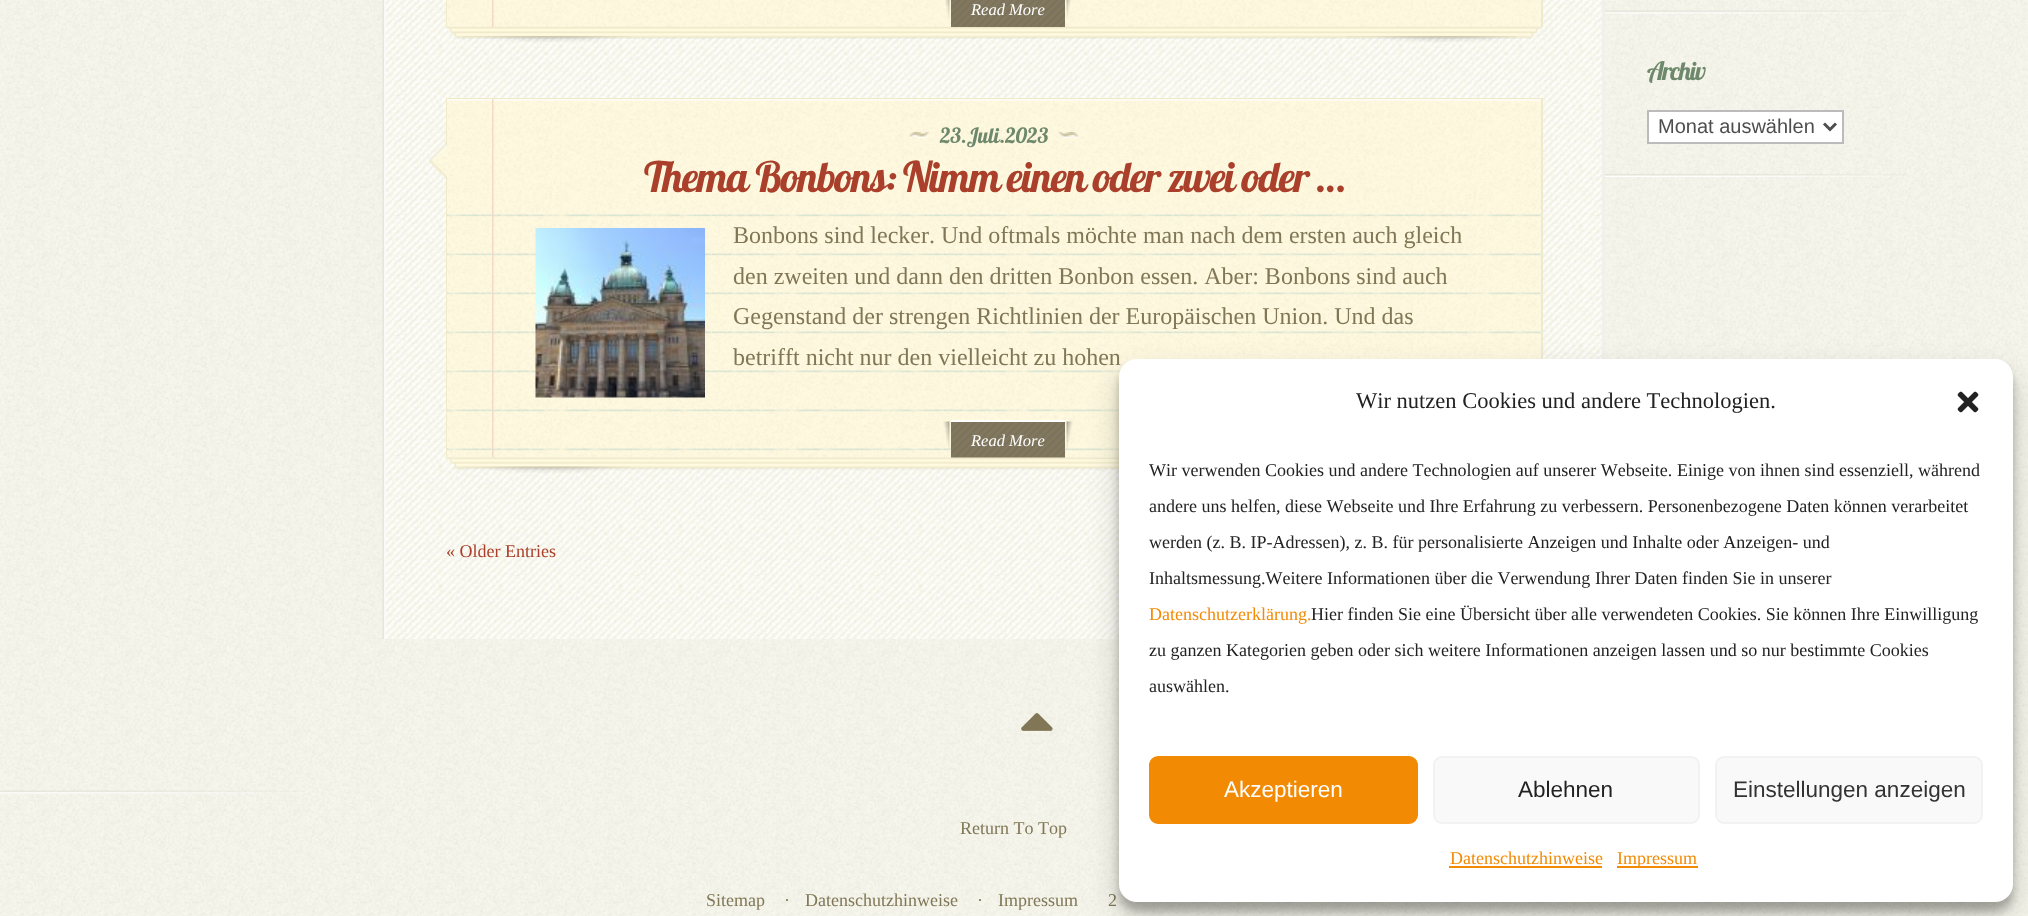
<svg xmlns="http://www.w3.org/2000/svg" width="2028" height="916" viewBox="0 0 2028 916">
  <style>*{font-kerning:none!important;font-variant-ligatures:none!important}</style>
  <defs>
    <filter id="blur1" x="-50%" y="-200%" width="200%" height="500%"><feGaussianBlur stdDeviation="4.5"/></filter>
    <filter id="blur2" x="-50%" y="-200%" width="200%" height="500%"><feGaussianBlur stdDeviation="15"/></filter>
  </defs>
  <rect width="100%" height="100%" fill="#ffffff"/>
  <image x="0" y="0" width="2028" height="916" href="img1.png"/>
  <image x="385" y="0" width="1217" height="639" href="img2.png"/>
  <image x="382" y="0" width="4" height="639" href="img3.png"/>
  <rect x="1541" y="0" width="2" height="27" fill="#f0eaca"/>
  <rect x="446" y="0" width="1" height="27" fill="#f0eaca"/>
  <image x="447" y="0" width="1094" height="27" href="img4.png"/>
  <image x="492" y="0" width="2" height="27" href="img5.png"/>
  <rect x="951" y="0" width="114" height="27" fill="#82785f"/>
  <image x="951" y="0" width="114" height="27" href="img6.png"/>
  <image x="945" y="0" width="5" height="19" href="img7.png"/>
  <text x="971" y="15" font-family="Liberation Serif" font-size="16.5" font-style="italic" fill="#ffffff">Read More</text>
  <image x="1066" y="0" width="5" height="19" href="img8.png"/>
  <image x="445" y="27" width="14" height="12" href="img9.png"/>
  <image x="1528" y="27" width="14" height="12" href="img10.png"/>
  <image x="459" y="27" width="1070" height="12" href="img11.png"/>
  <image x="462" y="36" width="169" height="6" href="img12.png"/>
  <image x="1346" y="36" width="170" height="6" href="img13.png"/>
  <rect x="446" y="98" width="1096" height="2" fill="#f0eaca"/>
  <rect x="446" y="98" width="2" height="360" fill="#f0eaca"/>
  <image x="429" y="142" width="18" height="37" href="img14.png"/>
  <rect x="1541" y="98" width="2" height="261" fill="#f0eaca"/>
  <image x="447" y="99" width="1094" height="359" href="img15.png"/>
  <image x="447" y="99" width="1094" height="97" href="img17.png"/>
  <rect x="447" y="99" width="1094" height="2" fill="#ffffff" fill-opacity="0.6"/>
  <image x="492" y="99" width="2" height="359" href="img16.png"/>
  <image x="909" y="132" width="20" height="6" href="img18.png"/>
  <text x="940" y="143" font-family="Lobster" font-size="21" fill="#6e886c">23.Juli.2023</text>
  <image x="1059" y="132" width="20" height="6" href="img19.png"/>
  <text x="644" y="192" font-family="Lobster" font-size="42" letter-spacing="-1.5" fill="#aa402b">Thema Bonbons: Nimm einen oder zwei oder …</text>
  <image x="535" y="228" width="170" height="170" href="img20.png"/>
  <text x="733" y="243" font-family="Liberation Serif" font-size="24" fill="#817757">Bonbons sind lecker. Und oftmals möchte man nach dem ersten auch gleich</text>
  <text x="733" y="284" font-family="Liberation Serif" font-size="24" fill="#817757">den zweiten und dann den dritten Bonbon essen. Aber: Bonbons sind auch</text>
  <text x="733" y="324" font-family="Liberation Serif" font-size="24" fill="#817757">Gegenstand der strengen Richtlinien der Europäischen Union. Und das</text>
  <text x="733" y="365" font-family="Liberation Serif" font-size="24" fill="#817757">betrifft nicht nur den vielleicht zu hohen</text>
  <rect x="951" y="422" width="114" height="36" fill="#82785f"/>
  <image x="951" y="422" width="114" height="35" href="img21.png"/>
  <rect x="951" y="420" width="114" height="2" fill="#ffffff"/>
  <image x="943" y="421" width="7" height="28" href="img22.png"/>
  <text x="971" y="446" font-family="Liberation Serif" font-size="16.5" font-style="italic" fill="#ffffff">Read More</text>
  <image x="1066" y="421" width="7" height="28" href="img23.png"/>
  <image x="445" y="457" width="14" height="13" href="img24.png"/>
  <image x="459" y="457" width="660" height="13" href="img25.png"/>
  <image x="463" y="466" width="168" height="7" href="img26.png"/>
  <text x="446" y="557" font-family="Liberation Serif" font-size="18" fill="#aa402b">« Older Entries</text>
  <rect x="1602" y="0" width="3" height="359" fill="#f1f1eb"/>
  <image x="1605" y="10" width="299" height="4" href="img27.png"/>
  <image x="1605" y="174" width="303" height="3" href="img28.png"/>
  <text x="1647" y="80" font-family="Lobster" font-size="25.5" letter-spacing="-1.5" fill="#6e886c">Archiv</text>
  <rect x="1648" y="111" width="195" height="32" fill="#ffffff" stroke="#bbbbbb" stroke-width="2"/>
  <path d="M1824 123.5L1830 129.5L1836 123.5" fill="none" stroke="#4e4e4e" stroke-width="3"/>
  <text x="1658" y="133" font-family="Liberation Sans" font-size="20" fill="#4e4e4e">Monat auswählen</text>
  <image x="0" y="790" width="306" height="4" href="img29.png"/>
  <image x="1021" y="713" width="32" height="18" href="img30.png"/>
  <text x="960" y="834" font-family="Liberation Serif" font-size="18" fill="#817757">Return To Top</text>
  <text x="706" y="906" font-family="Liberation Serif" font-size="18" fill="#817757">Sitemap</text>
  <text x="784" y="906" font-family="Liberation Serif" font-size="18" fill="#817757">·</text>
  <text x="805" y="906" font-family="Liberation Serif" font-size="18" fill="#817757">Datenschutzhinweise</text>
  <text x="977" y="906" font-family="Liberation Serif" font-size="18" fill="#817757">·</text>
  <text x="998" y="906" font-family="Liberation Serif" font-size="18" fill="#817757">Impressum</text>
  <text x="1108" y="906" font-family="Liberation Serif" font-size="18" fill="#817757">2</text>
  <rect x="1119" y="368" width="894" height="543" rx="18" fill="#000000" fill-opacity="0.23" filter="url(#blur1)"/>
  <rect x="1119" y="374" width="894" height="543" rx="18" fill="#000000" fill-opacity="0.19" filter="url(#blur2)"/>
  <rect x="1119" y="359" width="894" height="543" rx="18" fill="#ffffff"/>
  <text x="1356" y="408" font-family="Liberation Serif" font-size="22.5" fill="#222222">Wir nutzen Cookies und andere Technologien.</text>
  <image x="1957" y="391" width="22" height="22" href="img31.png"/>
  <text x="1149" y="476" font-family="Liberation Serif" font-size="18" fill="#222222">Wir verwenden Cookies und andere Technologien auf unserer Webseite.</text>
  <text x="1677" y="476" font-family="Liberation Serif" font-size="18" fill="#222222">Einige von ihnen sind essenziell, während</text>
  <text x="1149" y="512" font-family="Liberation Serif" font-size="18" fill="#222222">andere uns helfen, diese Webseite und Ihre Erfahrung zu verbessern. Personenbezogene Daten können verarbeitet</text>
  <text x="1149" y="548" font-family="Liberation Serif" font-size="18" fill="#222222">werden (z. B. IP-Adressen), z. B. für personalisierte Anzeigen und Inhalte oder Anzeigen- und</text>
  <text x="1149" y="584" font-family="Liberation Serif" font-size="18" fill="#222222">Inhaltsmessung.Weitere Informationen über die Verwendung</text>
  <text x="1595" y="584" font-family="Liberation Serif" font-size="18" fill="#222222">Ihrer Daten finden Sie in unserer</text>
  <text x="1149" y="620" font-family="Liberation Serif" font-size="18" fill="#f28a04">Datenschutzerklärung.</text>
  <text x="1311" y="620" font-family="Liberation Serif" font-size="18" fill="#222222">Hier finden Sie eine Übersicht über alle verwendeten Cookies. Sie können Ihre Einwilligung</text>
  <text x="1149" y="656" font-family="Liberation Serif" font-size="18" fill="#222222">zu ganzen Kategorien geben oder sich weitere Informationen anzeigen lassen und so nur bestimmte Cookies</text>
  <text x="1149" y="692" font-family="Liberation Serif" font-size="18" fill="#222222">auswählen.</text>
  <rect x="1150" y="757" width="267" height="66" rx="8" fill="#f28a04" stroke="#f28a04" stroke-width="2"/>
  <text x="1224" y="797" font-family="Liberation Sans" font-size="22.5" fill="#ffffff">Akzeptieren</text>
  <rect x="1434" y="757" width="265" height="66" rx="8" fill="#f9f9f9" stroke="#f2f2f2" stroke-width="2"/>
  <text x="1518" y="797" font-family="Liberation Sans" font-size="22.5" fill="#222222">Ablehnen</text>
  <rect x="1716" y="757" width="266" height="66" rx="8" fill="#f9f9f9" stroke="#f2f2f2" stroke-width="2"/>
  <text x="1733" y="797" font-family="Liberation Sans" font-size="22.5" fill="#333333">Einstellungen anzeigen</text>
  <text x="1450" y="864" font-family="Liberation Serif" font-size="18" fill="#f28a04">Datenschutzhinweise</text>
  <rect x="1449" y="866" width="153" height="2" fill="#f28a04"/>
  <rect x="1617" y="866" width="81" height="2" fill="#f28a04"/>
  <text x="1617" y="864" font-family="Liberation Serif" font-size="18" fill="#f28a04">Impressum</text>
</svg>
